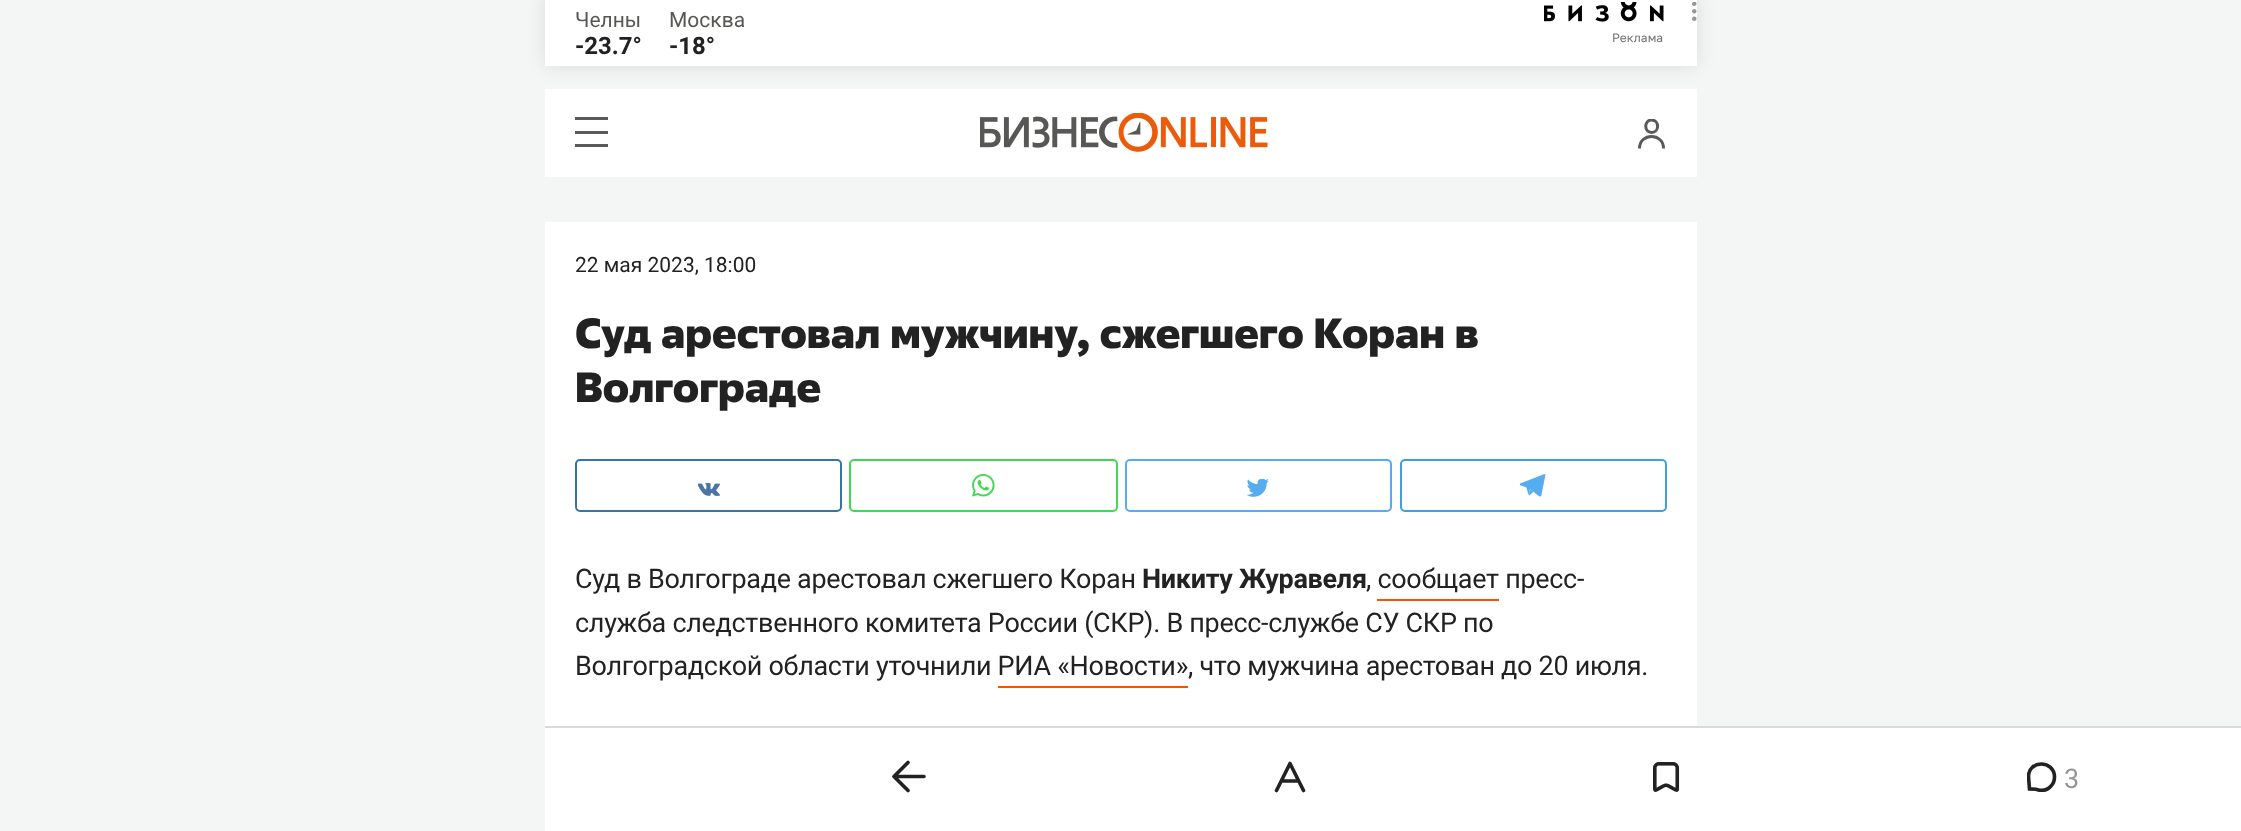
<svg xmlns="http://www.w3.org/2000/svg" width="2241" height="831" viewBox="0 0 2241 831">
  <defs>
    <filter id="blur1" x="-50%" y="-200%" width="200%" height="500%"><feGaussianBlur stdDeviation="9"/></filter>
    <clipPath id="clip1"><rect x="1638" y="119" width="27" height="30"/></clipPath>
    <clipPath id="clip2"><rect x="2027" y="762" width="30" height="30"/></clipPath>
  </defs>
  <rect width="100%" height="100%" fill="#f4f5f5"/>
  <rect x="545" y="-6" width="1152" height="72" fill="#000000" fill-opacity="0.1" filter="url(#blur1)"/>
  <rect x="545" y="0" width="1152" height="66" fill="#ffffff"/>
  <text x="575" y="27" font-family="Roboto" font-size="21" fill="#575754">Челны</text>
  <text x="575" y="54" font-family="Roboto" font-size="24" font-weight="bold" fill="#222222">-23.7°</text>
  <text x="669" y="27" font-family="Roboto" font-size="21" fill="#575754">Москва</text>
  <text x="669" y="54" font-family="Roboto" font-size="24" font-weight="bold" fill="#222222">-18°</text>
  <image x="1544" y="2" width="120" height="20" href="img1.png"/>
  <image x="1692" y="2" width="5" height="19" href="img2.png"/>
  <text x="1612" y="42" font-family="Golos" font-size="12" fill="#717171">Реклама</text>
  <rect x="545" y="89" width="1152" height="88" fill="#ffffff"/>
  <rect x="575" y="117" width="33" height="30" fill="#595a5c"/>
  <rect x="575" y="120" width="33" height="11" fill="#ffffff"/>
  <rect x="575" y="134" width="33" height="10" fill="#ffffff"/>
  <image x="980" y="113" width="288" height="39" href="img3.png"/>
  <path d="M1663.5 148.5C1663.5 132.5 1639.5 132.5 1639.5 148.5" fill="none" stroke="#58595b" stroke-width="3"/>
  <g clip-path="url(#clip1)">
    <path d="M1651.5 132.5C1659.5 132.5 1659.5 120.5 1652 120C1644 119.5 1643.5 132 1651.5 132.5Z" fill="none" stroke="#58595b" stroke-width="3"/>
  </g>
  <rect x="545" y="222" width="1152" height="504" fill="#ffffff"/>
  <text x="575" y="272" font-family="Roboto" font-size="21" fill="#222222">22 мая 2023, 18:00</text>
  <text x="575" y="348" font-family="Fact" font-size="42" font-weight="800" fill="#222222">Суд арестовал мужчину, сжегшего Коран в</text>
  <text x="575" y="402" font-family="Fact" font-size="42" font-weight="800" fill="#222222">Волгограде</text>
  <rect x="576" y="460" width="265" height="51" rx="4" fill="none" stroke="#3474a6" stroke-width="2"/>
  <image x="698" y="483" width="22" height="13" href="img4.png"/>
  <rect x="850" y="460" width="267" height="51" rx="4" fill="none" stroke="#43d854" stroke-width="2"/>
  <image x="972" y="474" width="23" height="23" href="img5.png"/>
  <rect x="1126" y="460" width="265" height="51" rx="4" fill="none" stroke="#55acee" stroke-width="2"/>
  <image x="1247" y="479" width="22" height="18" href="img6.png"/>
  <rect x="1401" y="460" width="265" height="51" rx="4" fill="none" stroke="#419fd9" stroke-width="2"/>
  <image x="1520" y="474" width="26" height="23" href="img7.png"/>
  <text x="575" y="588" font-family="Roboto" font-size="27" letter-spacing="-0.3" fill="#222222">Суд в Волгограде арестовал сжегшего Коран</text>
  <text x="1142" y="588" font-family="Roboto" font-size="27" font-weight="bold" letter-spacing="-0.3" fill="#222222">Никиту Журавеля</text>
  <text x="1366" y="588" font-family="Roboto" font-size="27" letter-spacing="-0.3" fill="#222222">, сообщает пресс-</text>
  <rect x="1377" y="599" width="122" height="2" fill="#f95102"/>
  <text x="575" y="632" font-family="Roboto" font-size="27" letter-spacing="-0.3" fill="#222222">служба следственного комитета России (СКР). В пресс-службе СУ СКР по</text>
  <text x="575" y="675" font-family="Roboto" font-size="27" letter-spacing="-0.3" fill="#222222">Волгоградской области уточнили РИА «Новости», что мужчина арестован до 20 июля.</text>
  <rect x="998" y="686" width="190" height="2" fill="#f95102"/>
  <rect x="545" y="728" width="1696" height="103" fill="#ffffff"/>
  <rect x="545" y="726" width="1696" height="2" fill="#d9d9d9"/>
  <path d="M908 762.5L894 776.5L908 790.5M924 776.5H894.5" fill="none" stroke="#222222" stroke-width="3.6" stroke-linecap="round" stroke-linejoin="round"/>
  <path d="M1276.5 790.5L1290 763.5L1303.5 790.5M1281.5 781H1298" fill="none" stroke="#222222" stroke-width="3.6" stroke-linecap="round" stroke-linejoin="round"/>
  <image x="1653" y="762" width="27" height="30" href="img8.png"/>
  <g clip-path="url(#clip2)">
    <path d="M2028.5 776.5C2028.5 759.5 2054.5 760 2054.5 777C2054.5 780.5 2053.5 783.5 2051 786C2048 789.5 2043 791 2038.5 790V791.5V790C2035.5 789 2032.5 789 2029.5 789L2029 783ZM2028.5 776.5H2026.5Z" fill="none" stroke="#222222" stroke-width="3.6"/>
  </g>
  <text x="2064" y="788" font-family="Roboto" font-size="27" fill="#969696">3</text>
</svg>
